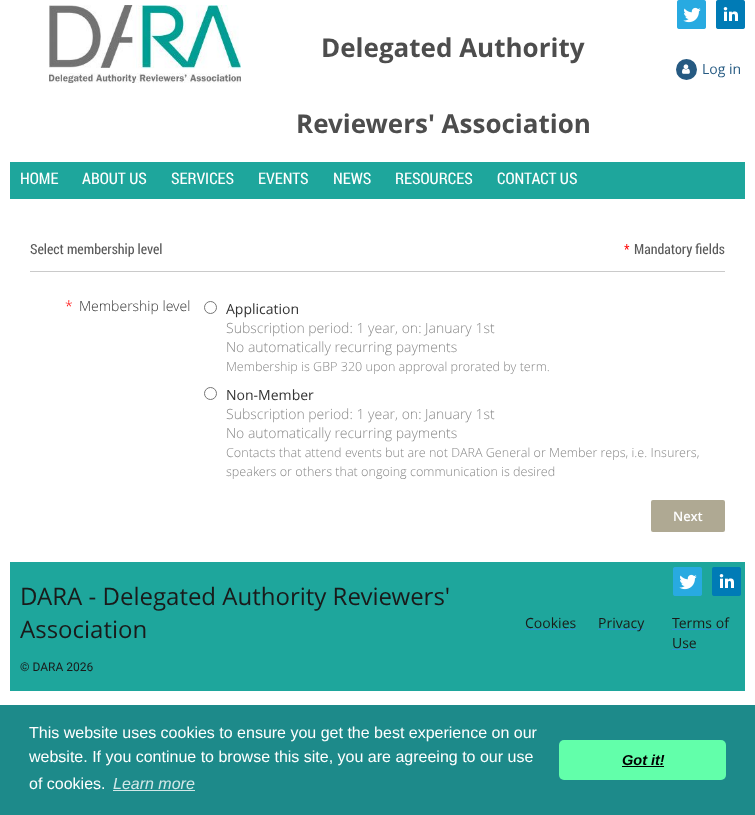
<svg xmlns="http://www.w3.org/2000/svg" width="755" height="815" viewBox="0 0 755 815">
  <rect width="100%" height="100%" fill="#ffffff"/>
  <image x="49" y="5" width="192" height="78" href="img1.png"/>
  <text x="321" y="57" font-family="Open Sans" font-size="26" font-weight="bold" fill="#4d4d4d">Delegated Authority</text>
  <text x="296" y="133" font-family="Open Sans" font-size="26" font-weight="bold" fill="#4d4d4d">Reviewers' Association</text>
  <image x="677" y="0" width="29" height="29" href="img2.png"/>
  <image x="716" y="0" width="29" height="29" href="img3.png"/>
  <circle cx="686.5" cy="69.5" r="9.5" fill="#265a82" stroke="#265a82" stroke-width="2"/>
  <image x="682" y="64" width="8" height="10" href="img4.png"/>
  <text x="702" y="74" font-family="Open Sans" font-size="14" fill="#265a82">Log in</text>
  <rect x="10" y="162" width="735" height="37" fill="#1ea69c"/>
  <text x="20" y="184" font-family="Roboto Condensed" font-size="16" fill="#fefefe">HOME</text>
  <text x="82" y="184" font-family="Roboto Condensed" font-size="16" fill="#fefefe">ABOUT US</text>
  <text x="171" y="184" font-family="Roboto Condensed" font-size="16" fill="#fefefe">SERVICES</text>
  <text x="258" y="184" font-family="Roboto Condensed" font-size="16" fill="#fefefe">EVENTS</text>
  <text x="333" y="184" font-family="Roboto Condensed" font-size="16" fill="#fefefe">NEWS</text>
  <text x="395" y="184" font-family="Roboto Condensed" font-size="16" fill="#fefefe">RESOURCES</text>
  <text x="497" y="184" font-family="Roboto Condensed" font-size="16" fill="#fefefe">CONTACT US</text>
  <rect x="30" y="271" width="695" height="1" fill="#cacaca"/>
  <text x="30" y="254" font-family="Roboto Condensed" font-size="14" fill="#5a5a5a">Select membership level</text>
  <text x="624" y="254" font-family="Roboto Condensed" font-size="14" fill="#ff0000">*</text>
  <text x="634" y="254" font-family="Roboto Condensed" font-size="14" fill="#5a5a5a">Mandatory fields</text>
  <text x="65" y="311" font-family="Open Sans" font-size="14" font-weight="300" fill="#ff0000">*</text>
  <text x="79" y="311" font-family="Open Sans" font-size="14" font-weight="300" fill="#333333">Membership level</text>
  <circle cx="210.5" cy="307.5" r="6" fill="none" stroke="#767676"/>
  <text x="226" y="314" font-family="Open Sans" font-size="14" fill="#333333">Application</text>
  <text x="226" y="333" font-family="Open Sans" font-size="14" font-weight="300" fill="#888888">Subscription period: 1 year, on: January 1st</text>
  <text x="226" y="352" font-family="Open Sans" font-size="14" font-weight="300" fill="#888888">No automatically recurring payments</text>
  <text x="226" y="371" font-family="Open Sans" font-size="12.6" font-weight="300" fill="#888888">Membership is GBP 320 upon approval prorated by term.</text>
  <circle cx="210.5" cy="393.5" r="6" fill="none" stroke="#767676"/>
  <text x="226" y="400" font-family="Open Sans" font-size="14" fill="#333333">Non-Member</text>
  <text x="226" y="419" font-family="Open Sans" font-size="14" font-weight="300" fill="#888888">Subscription period: 1 year, on: January 1st</text>
  <text x="226" y="438" font-family="Open Sans" font-size="14" font-weight="300" fill="#888888">No automatically recurring payments</text>
  <text x="226" y="457" font-family="Open Sans" font-size="12.6" font-weight="300" fill="#888888">Contacts that attend events but are not DARA General or Member reps, i.e. Insurers,</text>
  <text x="226" y="476" font-family="Open Sans" font-size="12.6" font-weight="300" fill="#888888">speakers or others that ongoing communication is desired</text>
  <rect x="651" y="500" width="74" height="32" rx="2" fill="#afa993"/>
  <text x="673" y="521" font-family="Open Sans" font-size="13" font-weight="600" fill="#fefefe">Next</text>
  <rect x="10" y="562" width="735" height="129" fill="#1ea69c"/>
  <text x="20" y="605" font-family="Open Sans" font-size="24" fill="#1a1a1a">DARA - Delegated Authority Reviewers'</text>
  <text x="20" y="638" font-family="Open Sans" font-size="24" fill="#1a1a1a">Association</text>
  <text x="20" y="671" font-family="Roboto" font-size="12" fill="#1a1a1a">© DARA 2026</text>
  <text x="525" y="628" font-family="Open Sans" font-size="14" fill="#1a1a1a">Cookies</text>
  <rect x="525" y="629" width="51" height="1" fill="#2b90d1"/>
  <rect x="598" y="629" width="46" height="1" fill="#2b90d1"/>
  <text x="598" y="628" font-family="Open Sans" font-size="14" fill="#1a1a1a">Privacy</text>
  <image x="673" y="567" width="29" height="29" href="img5.png"/>
  <image x="712" y="567" width="29" height="29" href="img6.png"/>
  <text x="672" y="628" font-family="Open Sans" font-size="14" fill="#1a1a1a">Terms of</text>
  <rect x="672" y="629" width="56" height="1" fill="#2b90d1"/>
  <text x="672" y="648" font-family="Open Sans" font-size="14" fill="#1a1a1a">Use</text>
  <rect x="672" y="649" width="24" height="1" fill="#2b90d1"/>
  <rect x="0" y="705" width="755" height="110" fill="#1d8a8a"/>
  <text x="29" y="738" font-family="Liberation Sans" font-size="16" fill="#fefefe">This website uses cookies to ensure you get the best experience on our</text>
  <text x="29" y="762" font-family="Liberation Sans" font-size="16" fill="#fefefe">website. If you continue to browse this site, you are agreeing to our use</text>
  <text x="29" y="789" font-family="Liberation Sans" font-size="16" fill="#fefefe">of cookies.</text>
  <text x="113" y="789" font-family="Liberation Sans" font-size="16" font-style="italic" fill="#d2e8e8">Learn more</text>
  <rect x="113" y="790" width="82" height="1" fill="#d2e8e8"/>
  <rect x="559" y="740" width="167" height="40" rx="5" fill="#62ffaa"/>
  <text x="622" y="765" font-family="Liberation Sans" font-size="14.5" font-weight="bold" font-style="italic" fill="#000000">Got it!</text>
  <rect x="622" y="766" width="42" height="1" fill="#000000"/>
</svg>
